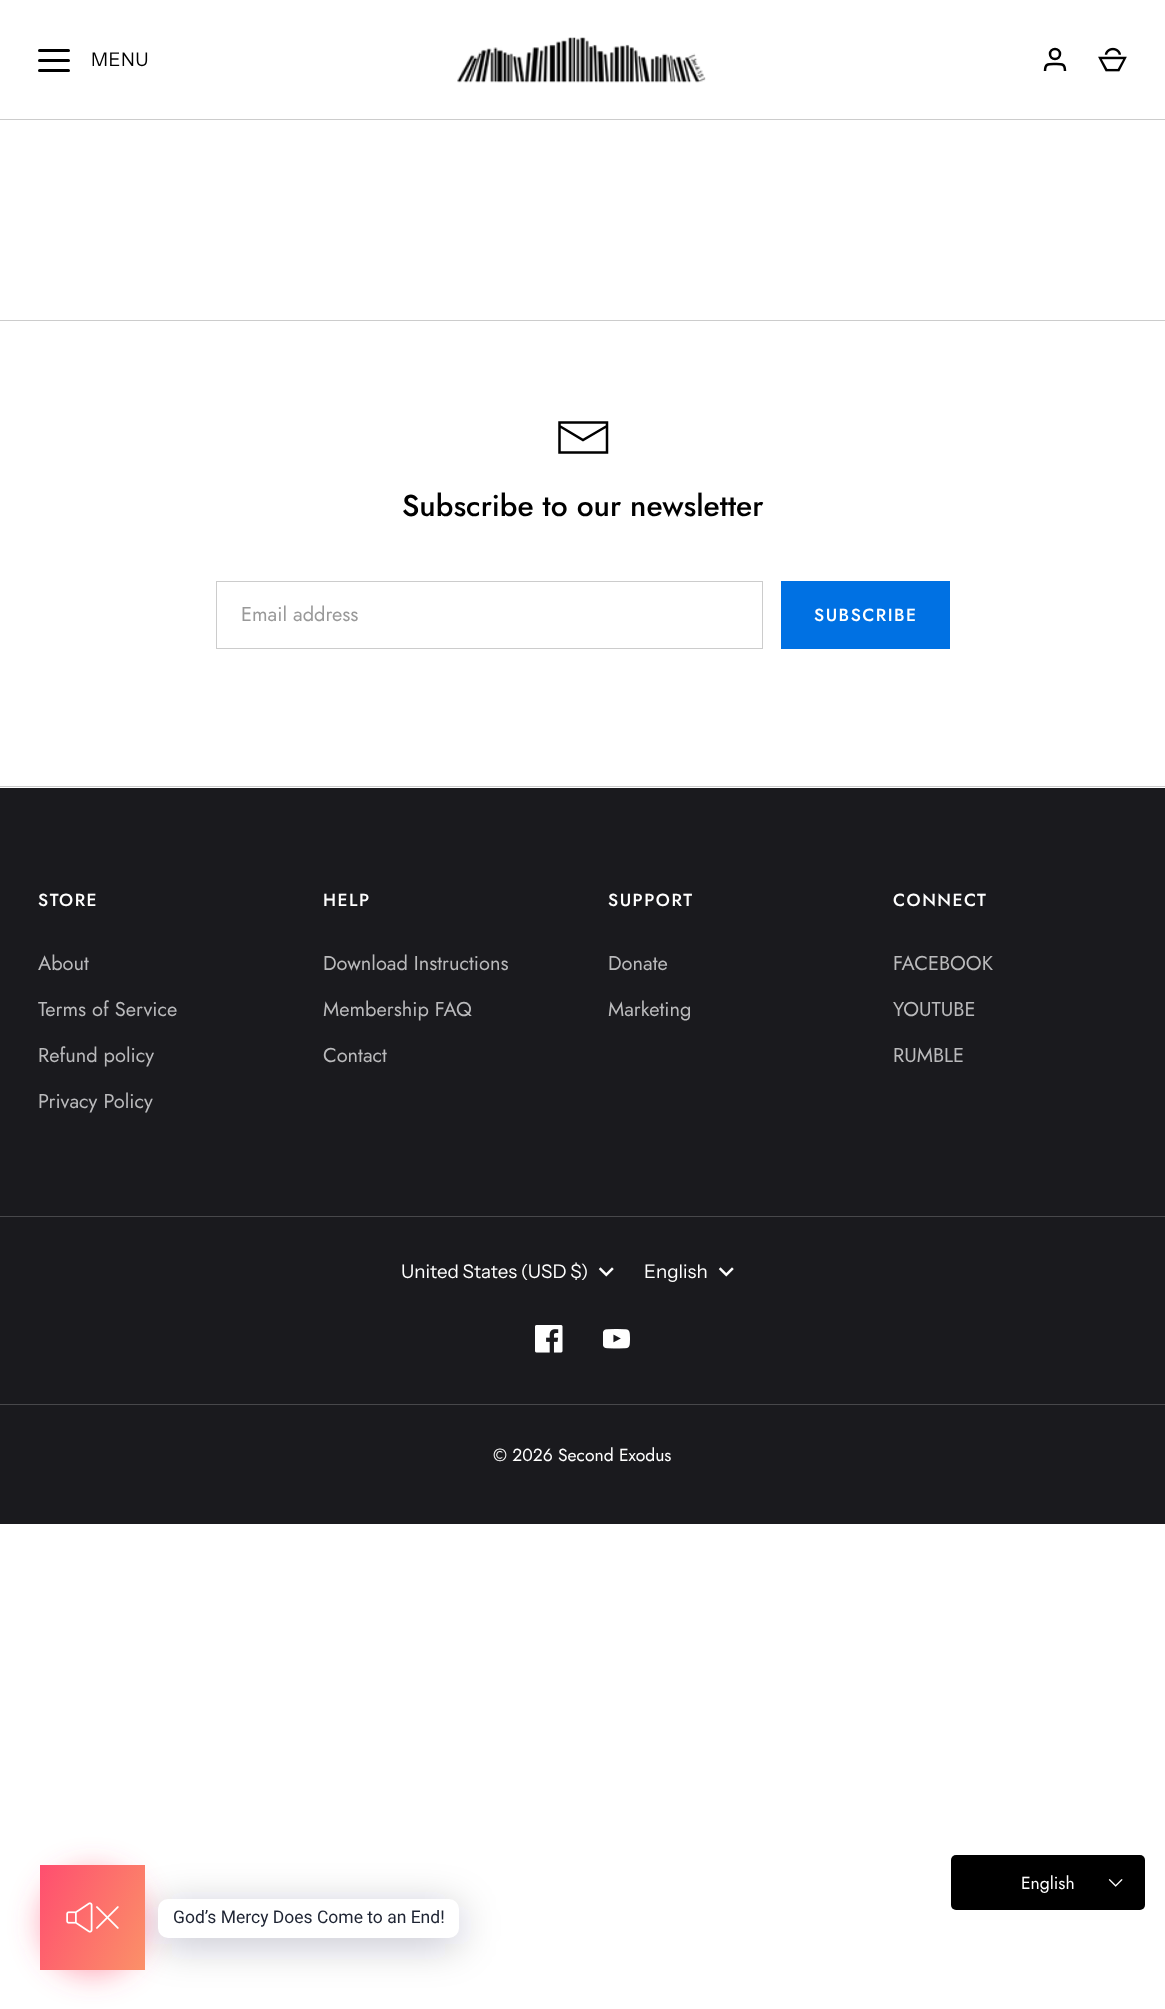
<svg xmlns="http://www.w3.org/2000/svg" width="1165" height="2009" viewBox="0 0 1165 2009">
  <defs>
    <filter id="blur1" x="-50%" y="-200%" width="200%" height="500%"><feGaussianBlur stdDeviation="15"/></filter>
    <filter id="blur2" x="-50%" y="-200%" width="200%" height="500%"><feGaussianBlur stdDeviation="20"/></filter>
    <linearGradient id="g1" gradientUnits="userSpaceOnUse" x1="29" y1="1888" x2="156" y2="1947"><stop offset="0" stop-color="#ff4e6f"/><stop offset="1" stop-color="#fb9168"/></linearGradient>
  </defs>
  <rect width="100%" height="100%" fill="#ffffff"/>
  <rect x="38" y="49" width="32" height="3" rx="1.5" fill="#000000"/>
  <rect x="38" y="59" width="32" height="3" rx="1.5" fill="#000000"/>
  <rect x="38" y="69" width="32" height="3" rx="1.5" fill="#000000"/>
  <text x="91" y="66" font-family="Instrument Sans" font-size="18.75" letter-spacing="0.5" fill="#000000">MENU</text>
  <image x="457" y="37" width="249" height="46" href="img1.png"/>
  <circle cx="1055" cy="54" r="5" fill="none" stroke="#000000" stroke-width="2.5"/>
  <path d="M1065 71C1065 63.5 1062 64 1055 64C1048 64 1045 63.5 1045 71" fill="none" stroke="#000000" stroke-width="2.5"/>
  <image x="1098" y="47" width="29" height="25" href="img2.png"/>
  <rect x="0" y="119" width="1165" height="1" fill="#cccccc"/>
  <rect x="0" y="788" width="1165" height="736" fill="#1a1a1e"/>
  <rect x="0" y="320" width="1165" height="1" fill="#cccccc"/>
  <rect x="0" y="786" width="1165" height="1" fill="#cccccc"/>
  <path d="M559.5 422.5V452.5H607V422.5ZM559.5 426L583 440L607 426" fill="none" stroke="#000000" stroke-width="2.5"/>
  <text x="402" y="516" font-family="Jost" font-size="30" font-weight="500" fill="#000000">Subscribe to our newsletter</text>
  <rect x="216.5" y="581.5" width="546" height="67" fill="none" stroke="#cccccc"/>
  <text x="241" y="621" font-family="Jost" font-size="20" fill="#999999">Email address</text>
  <rect x="781" y="581" width="169" height="68" fill="#0071e3"/>
  <text x="814" y="621" font-family="Jost" font-size="17.5" font-weight="500" letter-spacing="1.5" fill="#ffffff">SUBSCRIBE</text>
  <text x="38" y="906" font-family="Jost" font-size="17.5" font-weight="500" letter-spacing="1.5" fill="#ffffff">STORE</text>
  <text x="38" y="970" font-family="Jost" font-size="20" fill="#bababc">About</text>
  <text x="38" y="1016" font-family="Jost" font-size="20" fill="#bababc">Terms of Service</text>
  <text x="38" y="1062" font-family="Jost" font-size="20" fill="#bababc">Refund policy</text>
  <text x="38" y="1108" font-family="Jost" font-size="20" fill="#bababc">Privacy Policy</text>
  <text x="323" y="906" font-family="Jost" font-size="17.5" font-weight="500" letter-spacing="1.5" fill="#ffffff">HELP</text>
  <text x="323" y="970" font-family="Jost" font-size="20" fill="#bababc">Download Instructions</text>
  <text x="323" y="1016" font-family="Jost" font-size="20" fill="#bababc">Membership FAQ</text>
  <text x="323" y="1062" font-family="Jost" font-size="20" fill="#bababc">Contact</text>
  <text x="608" y="906" font-family="Jost" font-size="17.5" font-weight="500" letter-spacing="1.5" fill="#ffffff">SUPPORT</text>
  <text x="608" y="970" font-family="Jost" font-size="20" fill="#bababc">Donate</text>
  <text x="608" y="1016" font-family="Jost" font-size="20" fill="#bababc">Marketing</text>
  <text x="893" y="906" font-family="Jost" font-size="17.5" font-weight="500" letter-spacing="1.5" fill="#ffffff">CONNECT</text>
  <text x="893" y="970" font-family="Jost" font-size="20" fill="#bababc">FACEBOOK</text>
  <text x="893" y="1016" font-family="Jost" font-size="20" fill="#bababc">YOUTUBE</text>
  <text x="893" y="1062" font-family="Jost" font-size="20" fill="#bababc">RUMBLE</text>
  <rect x="0" y="1216" width="1165" height="1" fill="#48484b"/>
  <text x="401" y="1278" font-family="Instrument Sans" font-size="18.75" fill="#ffffff">United States (USD $)</text>
  <image x="598" y="1267" width="16" height="10" href="img3.png"/>
  <text x="644" y="1278" font-family="Instrument Sans" font-size="18.75" fill="#ffffff">English</text>
  <image x="718" y="1267" width="16" height="10" href="img3.png"/>
  <image x="535" y="1325" width="28" height="28" href="img4.png"/>
  <image x="603" y="1329" width="27" height="20" href="img5.png"/>
  <rect x="0" y="1404" width="1165" height="1" fill="#48484b"/>
  <text x="493" y="1461" font-family="Jost" font-size="17.5" fill="#ffffff">© 2026 Second Exodus</text>
  <rect x="951" y="1855" width="194" height="55" rx="5" fill="#000000"/>
  <text x="1021" y="1889" font-family="Jost" font-size="17.5" fill="#ffffff">English</text>
  <image x="1108" y="1879" width="15" height="8" href="img6.png"/>
  <rect x="40" y="1870" width="105" height="105" rx="52.5" fill="#ff4e6f" fill-opacity="0.5" filter="url(#blur1)"/>
  <rect x="158" y="1906" width="301" height="39" rx="10" fill="#00122e" fill-opacity="0.24" filter="url(#blur2)"/>
  <rect x="40" y="1865" width="105" height="105" fill="url(#g1)"/>
  <image x="66" y="1902" width="53" height="31" href="img7.png"/>
  <rect x="158" y="1899" width="301" height="39" rx="10" fill="#ffffff"/>
  <text x="173" y="1923" font-family="Roboto" font-size="17.5" fill="#1e2433">God’s Mercy Does Come to an End!</text>
</svg>
